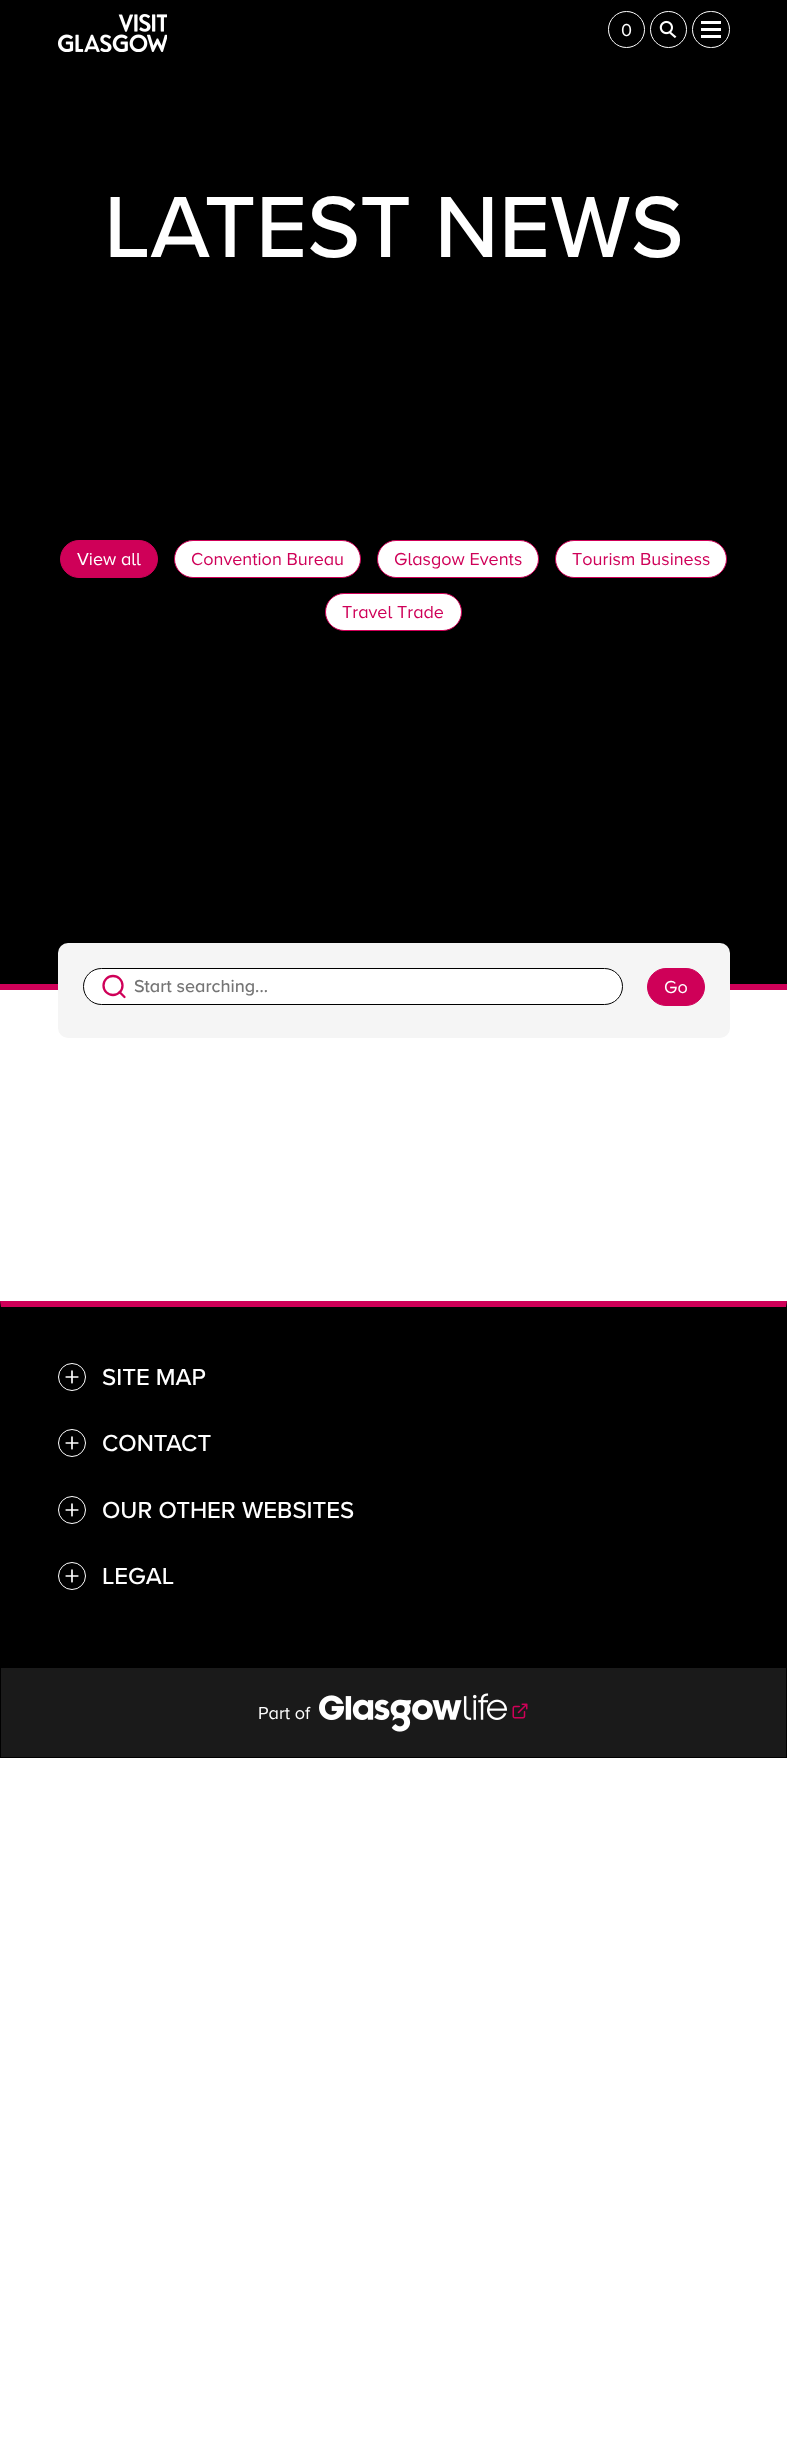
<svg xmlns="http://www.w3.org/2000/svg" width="787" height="2462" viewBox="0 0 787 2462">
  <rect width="100%" height="100%" fill="#ffffff"/>
  <rect x="0" y="0" width="787" height="984" fill="#000000"/>
  <image x="58" y="14" width="109" height="38" href="img1.png"/>
  <circle cx="626.5" cy="29.5" r="18" fill="none" stroke="#ffffff"/>
  <text x="621" y="36" font-family="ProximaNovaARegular" font-size="18" fill="#ffffff">0</text>
  <circle cx="668.5" cy="29.5" r="18" fill="none" stroke="#ffffff"/>
  <image x="659" y="20" width="18" height="18" href="img2.png"/>
  <rect x="692.5" y="11.5" width="37" height="36" rx="18" fill="none" stroke="#ffffff"/>
  <rect x="701" y="28" width="20" height="3" fill="#ffffff"/>
  <rect x="701" y="21" width="20" height="3" fill="#ffffff"/>
  <rect x="701" y="35" width="20" height="3" fill="#ffffff"/>
  <rect x="0" y="984" width="787" height="6" fill="#cf0058"/>
  <text x="104" y="257" font-family="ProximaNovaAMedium" font-size="90" font-weight="500" fill="#ffffff">LATEST NEWS</text>
  <rect x="60.5" y="540.5" width="97" height="37" rx="18.5" fill="#cf0058" stroke="#cf0058"/>
  <text x="77" y="565" font-family="ProximaNovaARegular" font-size="18" fill="#ffffff">View all</text>
  <rect x="174.5" y="540.5" width="186" height="37" rx="18.5" fill="#ffffff" stroke="#cf0058"/>
  <text x="191" y="565" font-family="ProximaNovaARegular" font-size="18" fill="#cf0058">Convention Bureau</text>
  <rect x="377.5" y="540.5" width="161" height="37" rx="18.5" fill="#ffffff" stroke="#cf0058"/>
  <text x="394" y="565" font-family="ProximaNovaARegular" font-size="18" fill="#cf0058">Glasgow Events</text>
  <rect x="555.5" y="540.5" width="171" height="37" rx="18.5" fill="#ffffff" stroke="#cf0058"/>
  <text x="572" y="565" font-family="ProximaNovaARegular" font-size="18" fill="#cf0058">Tourism Business</text>
  <rect x="325.5" y="593.5" width="136" height="37" rx="18.5" fill="#ffffff" stroke="#cf0058"/>
  <text x="342" y="618" font-family="ProximaNovaARegular" font-size="18" fill="#cf0058">Travel Trade</text>
  <rect x="58" y="943" width="672" height="95" rx="10" fill="#f5f5f5"/>
  <rect x="83" y="968" width="540" height="37" rx="18.5" fill="#ffffff"/>
  <circle cx="113" cy="985.5" r="9.5" fill="none" stroke="#cf0058" stroke-width="2.3"/>
  <path d="M124.5 997L119.5 992" fill="none" stroke="#cf0058" stroke-width="2.3" stroke-linecap="round" stroke-linejoin="round"/>
  <rect x="83.5" y="968.5" width="539" height="36" rx="18" fill="none" stroke="#000000"/>
  <text x="134" y="992" font-family="ProximaNovaAMedium" font-size="18" font-weight="500" fill="#757575">Start searching...</text>
  <rect x="647.5" y="968.5" width="57" height="37" rx="18.5" fill="#cf0058" stroke="#cf0058"/>
  <text x="664" y="993" font-family="ProximaNovaARegular" font-size="18" fill="#ffffff">Go</text>
  <rect x="0" y="1301" width="787" height="457" fill="#000000"/>
  <path d="M0 1301H787L786 1307H1Z" fill="#cf0058"/>
  <circle cx="72" cy="1377" r="13.5" fill="none" stroke="#ffffff"/>
  <image x="65" y="1370" width="14" height="14" href="img3.png"/>
  <text x="102" y="1385" font-family="ProximaNovaAMedium" font-size="24" font-weight="500" fill="#ffffff">SITE MAP</text>
  <circle cx="72" cy="1443" r="13.5" fill="none" stroke="#ffffff"/>
  <image x="65" y="1436" width="14" height="14" href="img3.png"/>
  <text x="102" y="1451" font-family="ProximaNovaAMedium" font-size="24" font-weight="500" fill="#ffffff">CONTACT</text>
  <circle cx="72" cy="1510" r="13.5" fill="none" stroke="#ffffff"/>
  <image x="65" y="1503" width="14" height="14" href="img3.png"/>
  <text x="102" y="1518" font-family="ProximaNovaAMedium" font-size="24" font-weight="500" fill="#ffffff">OUR OTHER WEBSITES</text>
  <circle cx="72" cy="1576" r="13.5" fill="none" stroke="#ffffff"/>
  <image x="65" y="1569" width="14" height="14" href="img3.png"/>
  <text x="102" y="1584" font-family="ProximaNovaAMedium" font-size="24" font-weight="500" fill="#ffffff">LEGAL</text>
  <rect x="1" y="1668" width="785" height="89" fill="#1a1a1a"/>
  <text x="258" y="1719" font-family="ProximaNovaARegular" font-size="18" fill="#ffffff">Part of</text>
  <image x="319" y="1693" width="188" height="39" href="img4.png"/>
  <image x="512" y="1703" width="16" height="16" href="img5.png"/>
</svg>
